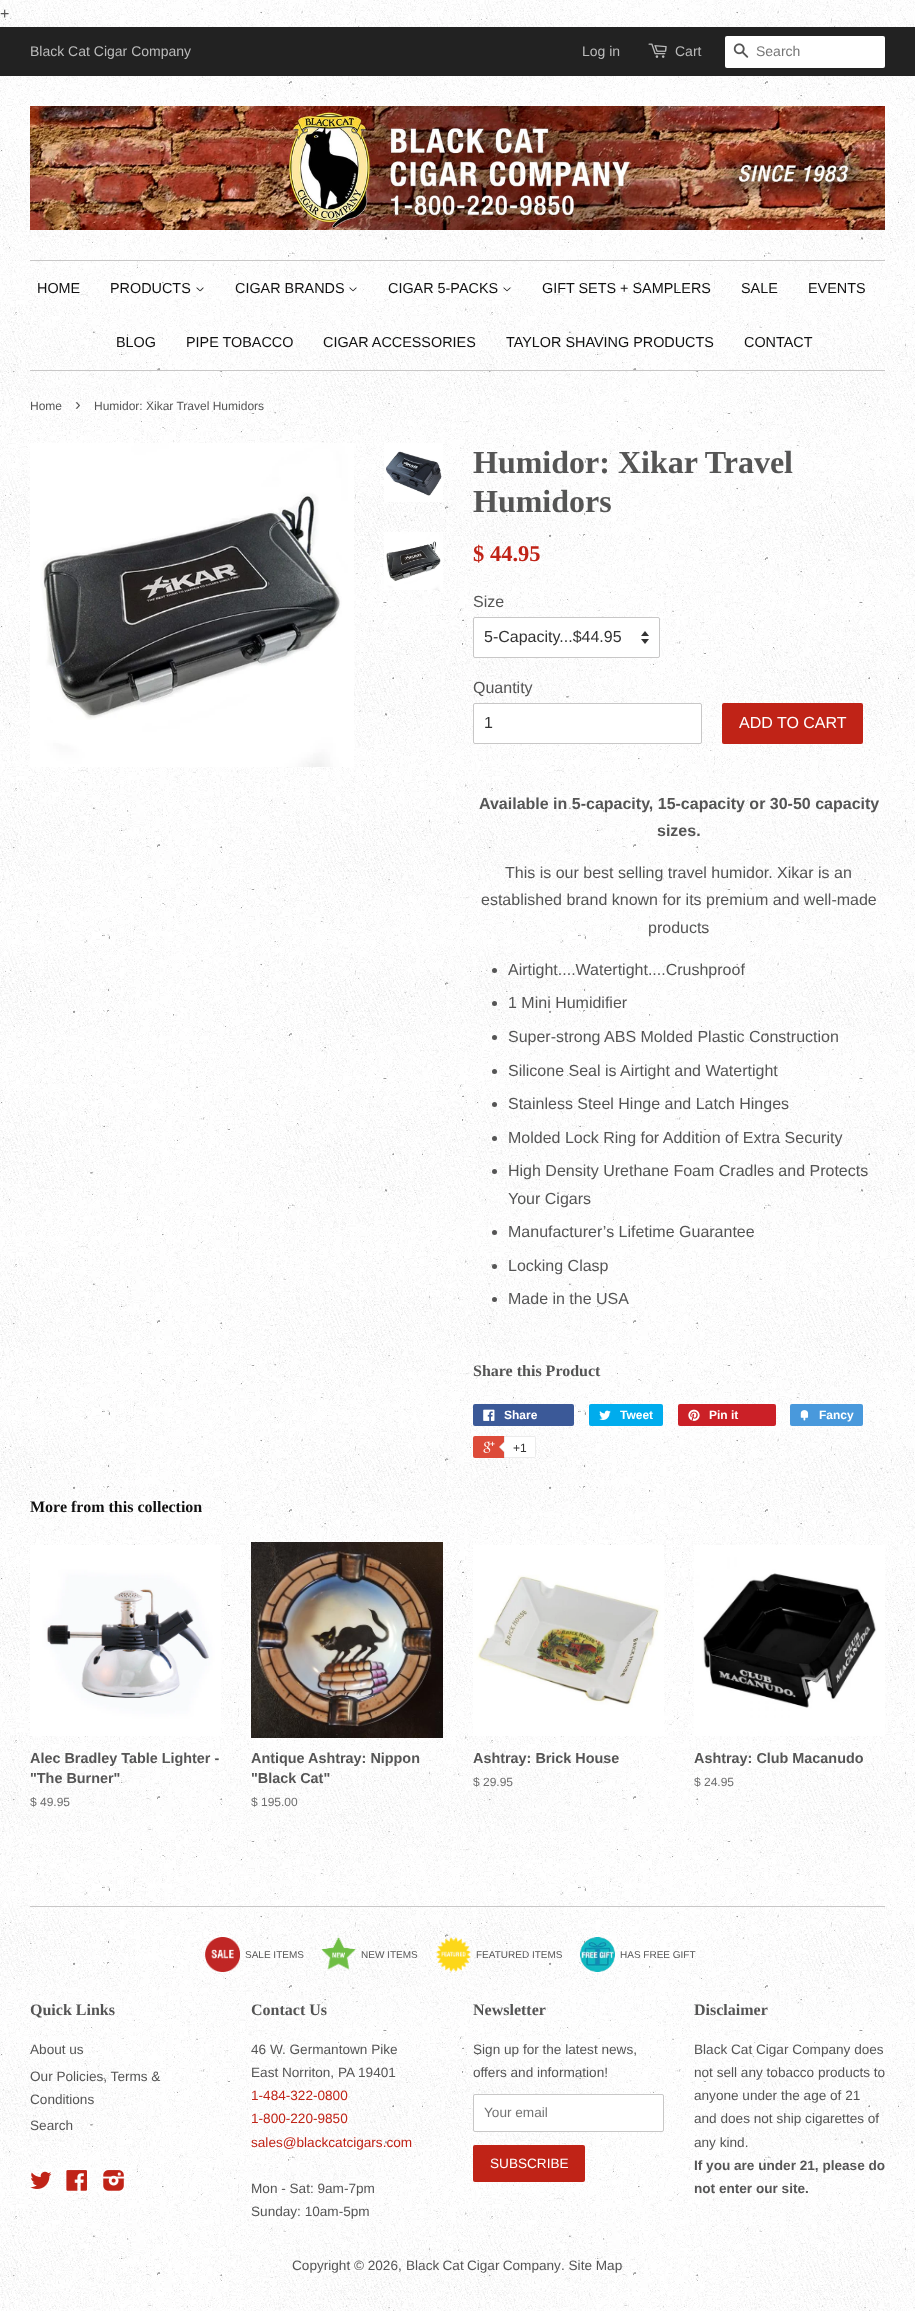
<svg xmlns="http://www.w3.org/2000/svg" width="915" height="2311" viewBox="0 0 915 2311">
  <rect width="100%" height="100%" fill="#ffffff"/>
  <image x="0" y="2307" width="915" height="4" href="img1.png"/>
  <image x="0" y="0" width="915" height="2307" href="img2.png"/>
  <text x="0" y="19" font-family="Liberation Sans" font-size="16" fill="#555555">+</text>
  <rect x="0" y="27" width="915" height="49" fill="#222222"/>
  <text x="30" y="56" font-family="Liberation Sans" font-size="14" fill="#bbbbbb">Black Cat Cigar Company</text>
  <text x="582" y="56" font-family="Liberation Sans" font-size="14" fill="#bbbbbb">Log in</text>
  <image x="648" y="43" width="19" height="15" href="img3.png"/>
  <text x="675" y="56" font-family="Liberation Sans" font-size="14" fill="#bbbbbb">Cart</text>
  <rect x="725" y="36" width="160" height="32" rx="2" fill="#ffffff"/>
  <image x="733" y="43" width="16" height="15" href="img4.png"/>
  <text x="756" y="56" font-family="Liberation Sans" font-size="14" fill="#757575">Search</text>
  <image x="30" y="106" width="855" height="124" href="img5.png"/>
  <rect x="30" y="260" width="855" height="1" fill="#c8c7c7"/>
  <rect x="30" y="370" width="855" height="1" fill="#c8c7c7"/>
  <text x="37" y="293" font-family="Liberation Sans" font-size="14.4" fill="#111111">HOME</text>
  <text x="110" y="293" font-family="Liberation Sans" font-size="14.4" fill="#111111">PRODUCTS</text>
  <image x="196" y="287" width="8" height="5" href="img6.png"/>
  <text x="235" y="293" font-family="Liberation Sans" font-size="14.4" fill="#111111">CIGAR BRANDS</text>
  <image x="349" y="287" width="8" height="5" href="img7.png"/>
  <text x="388" y="293" font-family="Liberation Sans" font-size="14.4" fill="#111111">CIGAR 5-PACKS</text>
  <image x="503" y="287" width="8" height="5" href="img8.png"/>
  <text x="542" y="293" font-family="Liberation Sans" font-size="14.4" fill="#111111">GIFT SETS + SAMPLERS</text>
  <text x="741" y="293" font-family="Liberation Sans" font-size="14.4" fill="#111111">SALE</text>
  <text x="808" y="293" font-family="Liberation Sans" font-size="14.4" fill="#111111">EVENTS</text>
  <text x="116" y="347" font-family="Liberation Sans" font-size="14.4" fill="#111111">BLOG</text>
  <text x="186" y="347" font-family="Liberation Sans" font-size="14.4" fill="#111111">PIPE TOBACCO</text>
  <text x="323" y="347" font-family="Liberation Sans" font-size="14.4" fill="#111111">CIGAR ACCESSORIES</text>
  <text x="506" y="347" font-family="Liberation Sans" font-size="14.4" fill="#111111">TAYLOR SHAVING PRODUCTS</text>
  <text x="744" y="347" font-family="Liberation Sans" font-size="14.4" fill="#111111">CONTACT</text>
  <text x="30" y="410" font-family="Liberation Sans" font-size="12" fill="#555555">Home</text>
  <text x="75" y="410" font-family="Liberation Sans" font-size="17" fill="#555555">›</text>
  <text x="94" y="410" font-family="Liberation Sans" font-size="12" fill="#555555">Humidor: Xikar Travel Humidors</text>
  <image x="30" y="443" width="324" height="324" href="img9.png"/>
  <image x="384" y="443" width="59" height="59" href="img10.png"/>
  <image x="384" y="532" width="59" height="58" href="img11.png"/>
  <text x="473" y="473" font-family="Liberation Serif" font-size="32" font-weight="bold" fill="#555555">Humidor: Xikar Travel</text>
  <text x="473" y="512" font-family="Liberation Serif" font-size="32" font-weight="bold" fill="#555555">Humidors</text>
  <text x="473" y="561" font-family="Liberation Serif" font-size="22.5" font-weight="bold" fill="#c02317">$ 44.95</text>
  <text x="473" y="607" font-family="Liberation Sans" font-size="16" fill="#555555">Size</text>
  <rect x="473" y="617" width="187" height="41" rx="2" fill="#ffffff"/>
  <image x="641" y="631" width="8" height="13" href="img12.png"/>
  <rect x="473.5" y="617.5" width="186" height="40" rx="1.5" fill="none" stroke="#c8c7c7"/>
  <text x="484" y="642" font-family="Liberation Sans" font-size="16" fill="#333333">5-Capacity...$44.95</text>
  <text x="473" y="693" font-family="Liberation Sans" font-size="16" fill="#555555">Quantity</text>
  <rect x="473.5" y="703.5" width="228" height="40" rx="1.5" fill="#ffffff" stroke="#c8c7c7"/>
  <text x="484" y="728" font-family="Liberation Sans" font-size="16" fill="#333333">1</text>
  <rect x="722" y="703" width="141" height="41" rx="2" fill="#c02317"/>
  <text x="739" y="728" font-family="Liberation Sans" font-size="16" fill="#ffffff">ADD TO CART</text>
  <text x="479" y="809" font-family="Liberation Sans" font-size="16" font-weight="bold" fill="#555555">Available in 5-capacity, 15-capacity or 30-50 capacity</text>
  <text x="657" y="836" font-family="Liberation Sans" font-size="16" font-weight="bold" fill="#555555">sizes.</text>
  <text x="505" y="878" font-family="Liberation Sans" font-size="16" fill="#555555">This is our best selling travel humidor. Xikar is an</text>
  <text x="481" y="905" font-family="Liberation Sans" font-size="16" fill="#555555">established brand known for its premium and well-made</text>
  <text x="648" y="933" font-family="Liberation Sans" font-size="16" fill="#555555">products</text>
  <circle cx="494.5" cy="970.5" r="2.5" fill="#555555"/>
  <text x="508" y="975" font-family="Liberation Sans" font-size="16" fill="#555555">Airtight....Watertight....Crushproof</text>
  <circle cx="494.5" cy="1003.5" r="2.5" fill="#555555"/>
  <text x="508" y="1008" font-family="Liberation Sans" font-size="16" fill="#555555">1 Mini Humidifier</text>
  <circle cx="494.5" cy="1037.5" r="2.5" fill="#555555"/>
  <text x="508" y="1042" font-family="Liberation Sans" font-size="16" fill="#555555">Super-strong ABS Molded Plastic Construction</text>
  <circle cx="494.5" cy="1071.5" r="2.5" fill="#555555"/>
  <text x="508" y="1076" font-family="Liberation Sans" font-size="16" fill="#555555">Silicone Seal is Airtight and Watertight</text>
  <circle cx="494.5" cy="1104.5" r="2.5" fill="#555555"/>
  <text x="508" y="1109" font-family="Liberation Sans" font-size="16" fill="#555555">Stainless Steel Hinge and Latch Hinges</text>
  <circle cx="494.5" cy="1138.5" r="2.5" fill="#555555"/>
  <text x="508" y="1143" font-family="Liberation Sans" font-size="16" fill="#555555">Molded Lock Ring for Addition of Extra Security</text>
  <circle cx="494.5" cy="1171.5" r="2.5" fill="#555555"/>
  <text x="508" y="1176" font-family="Liberation Sans" font-size="16" fill="#555555">High Density Urethane Foam Cradles and Protects</text>
  <text x="508" y="1204" font-family="Liberation Sans" font-size="16" fill="#555555">Your Cigars</text>
  <circle cx="494.5" cy="1232.5" r="2.5" fill="#555555"/>
  <text x="508" y="1237" font-family="Liberation Sans" font-size="16" fill="#555555">Manufacturer’s Lifetime Guarantee</text>
  <circle cx="494.5" cy="1266.5" r="2.5" fill="#555555"/>
  <text x="508" y="1271" font-family="Liberation Sans" font-size="16" fill="#555555">Locking Clasp</text>
  <circle cx="494.5" cy="1299.5" r="2.5" fill="#555555"/>
  <text x="508" y="1304" font-family="Liberation Sans" font-size="16" fill="#555555">Made in the USA</text>
  <text x="473" y="1376" font-family="Liberation Serif" font-size="16" font-weight="bold" fill="#555555">Share this Product</text>
  <rect x="473" y="1404" width="101" height="22" rx="2" fill="#3b5998"/>
  <image x="483" y="1409" width="12" height="12" href="img13.png"/>
  <text x="504" y="1419" font-family="Liberation Sans" font-size="12" font-weight="bold" fill="#ffffff">Share</text>
  <rect x="589" y="1404" width="74" height="22" rx="2" fill="#00aced"/>
  <image x="599" y="1410" width="12" height="10" href="img14.png"/>
  <text x="620" y="1419" font-family="Liberation Sans" font-size="12" font-weight="bold" fill="#ffffff">Tweet</text>
  <rect x="678" y="1404" width="98" height="22" rx="2" fill="#cb2027"/>
  <image x="688" y="1409" width="12" height="12" href="img15.png"/>
  <text x="709" y="1419" font-family="Liberation Sans" font-size="12" font-weight="bold" fill="#ffffff">Pin it</text>
  <rect x="790" y="1404" width="73" height="22" rx="2" fill="#4999dc"/>
  <image x="800" y="1410" width="9" height="11" href="img16.png"/>
  <text x="819" y="1419" font-family="Liberation Sans" font-size="12" font-weight="bold" fill="#ffffff">Fancy</text>
  <rect x="473" y="1436" width="61" height="22" rx="2" fill="#dd4b39"/>
  <image x="483" y="1441" width="12" height="12" href="img17.png"/>
  <path d="M504.5 1436.5H534C535 1436.5 535.5 1437 535.5 1438V1456C535.5 1457 535 1457.5 534 1457.5H504.5Z" fill="#ffffff" stroke="#ececec"/>
  <path d="M505 1441V1453L499 1447Z" fill="#ececec"/>
  <path d="M506 1441V1453L500 1447Z" fill="#ffffff"/>
  <text x="513" y="1452" font-family="Liberation Sans" font-size="12" fill="#333333">+1</text>
  <text x="30" y="1512" font-family="Liberation Serif" font-size="16" font-weight="bold" fill="#111111">More from this collection</text>
  <image x="30" y="1545" width="191" height="191" href="img18.png"/>
  <text x="30" y="1763" font-family="Liberation Sans" font-size="14.4" font-weight="bold" fill="#555555">Alec Bradley Table Lighter -</text>
  <text x="30" y="1783" font-family="Liberation Sans" font-size="14.4" font-weight="bold" fill="#555555">"The Burner"</text>
  <text x="30" y="1806" font-family="Liberation Sans" font-size="12" fill="#6e6e6e">$ 49.95</text>
  <image x="251" y="1542" width="192" height="196" href="img19.png"/>
  <text x="251" y="1763" font-family="Liberation Sans" font-size="14.4" font-weight="bold" fill="#555555">Antique Ashtray: Nippon</text>
  <text x="251" y="1783" font-family="Liberation Sans" font-size="14.4" font-weight="bold" fill="#555555">"Black Cat"</text>
  <text x="251" y="1806" font-family="Liberation Sans" font-size="12" fill="#6e6e6e">$ 195.00</text>
  <image x="473" y="1545" width="191" height="191" href="img20.png"/>
  <text x="473" y="1763" font-family="Liberation Sans" font-size="14.4" font-weight="bold" fill="#555555">Ashtray: Brick House</text>
  <text x="473" y="1786" font-family="Liberation Sans" font-size="12" fill="#6e6e6e">$ 29.95</text>
  <image x="694" y="1545" width="191" height="191" href="img21.png"/>
  <text x="694" y="1763" font-family="Liberation Sans" font-size="14.4" font-weight="bold" fill="#555555">Ashtray: Club Macanudo</text>
  <text x="694" y="1786" font-family="Liberation Sans" font-size="12" fill="#6e6e6e">$ 24.95</text>
  <rect x="30" y="1906" width="855" height="1" fill="#c8c7c7"/>
  <image x="205" y="1937" width="35" height="35" href="img22.png"/>
  <text x="245" y="1958" font-family="Liberation Sans" font-size="10" fill="#555555">SALE ITEMS</text>
  <image x="321" y="1937" width="35" height="33" href="img23.png"/>
  <text x="361" y="1958" font-family="Liberation Sans" font-size="10" fill="#555555">NEW ITEMS</text>
  <image x="436" y="1937" width="35" height="35" href="img24.png"/>
  <text x="476" y="1958" font-family="Liberation Sans" font-size="10" fill="#555555">FEATURED ITEMS</text>
  <image x="580" y="1937" width="35" height="35" href="img25.png"/>
  <text x="620" y="1958" font-family="Liberation Sans" font-size="10" fill="#555555">HAS FREE GIFT</text>
  <text x="30" y="2015" font-family="Liberation Serif" font-size="16" font-weight="bold" fill="#555555">Quick Links</text>
  <text x="30" y="2054" font-family="Liberation Sans" font-size="13.6" fill="#555555">About us</text>
  <text x="30" y="2081" font-family="Liberation Sans" font-size="13.6" fill="#555555">Our Policies, Terms &amp;</text>
  <text x="30" y="2104" font-family="Liberation Sans" font-size="13.6" fill="#555555">Conditions</text>
  <text x="30" y="2130" font-family="Liberation Sans" font-size="13.6" fill="#555555">Search</text>
  <image x="30" y="2171" width="22" height="18" href="img26.png"/>
  <image x="66" y="2170" width="21" height="21" href="img27.png"/>
  <image x="103" y="2170" width="21" height="21" href="img28.png"/>
  <text x="251" y="2015" font-family="Liberation Serif" font-size="16" font-weight="bold" fill="#555555">Contact Us</text>
  <text x="251" y="2054" font-family="Liberation Sans" font-size="13.6" fill="#555555">46 W. Germantown Pike</text>
  <text x="251" y="2077" font-family="Liberation Sans" font-size="13.6" fill="#555555">East Norriton, PA 19401</text>
  <text x="251" y="2100" font-family="Liberation Sans" font-size="13.6" fill="#c02317">1-484-322-0800</text>
  <text x="251" y="2123" font-family="Liberation Sans" font-size="13.6" fill="#c02317">1-800-220-9850</text>
  <text x="251" y="2147" font-family="Liberation Sans" font-size="13.6" fill="#c02317">sales@blackcatcigars.com</text>
  <text x="251" y="2193" font-family="Liberation Sans" font-size="13.6" fill="#555555">Mon - Sat: 9am-7pm</text>
  <text x="251" y="2216" font-family="Liberation Sans" font-size="13.6" fill="#555555">Sunday: 10am-5pm</text>
  <text x="473" y="2015" font-family="Liberation Serif" font-size="16" font-weight="bold" fill="#555555">Newsletter</text>
  <text x="473" y="2054" font-family="Liberation Sans" font-size="13.6" fill="#555555">Sign up for the latest news,</text>
  <text x="473" y="2077" font-family="Liberation Sans" font-size="13.6" fill="#555555">offers and information!</text>
  <rect x="473.5" y="2094.5" width="190" height="37" rx="1.5" fill="#ffffff" stroke="#c8c7c7"/>
  <text x="484" y="2117" font-family="Liberation Sans" font-size="13.6" fill="#757575">Your email</text>
  <rect x="473" y="2145" width="112" height="37" rx="2" fill="#c02317"/>
  <text x="490" y="2168" font-family="Liberation Sans" font-size="13.6" fill="#ffffff">SUBSCRIBE</text>
  <text x="694" y="2015" font-family="Liberation Serif" font-size="16" font-weight="bold" fill="#555555">Disclaimer</text>
  <text x="694" y="2054" font-family="Liberation Sans" font-size="13.6" fill="#555555">Black Cat Cigar Company does</text>
  <text x="694" y="2077" font-family="Liberation Sans" font-size="13.6" fill="#555555">not sell any tobacco products to</text>
  <text x="694" y="2100" font-family="Liberation Sans" font-size="13.6" fill="#555555">anyone under the age of 21</text>
  <text x="694" y="2123" font-family="Liberation Sans" font-size="13.6" fill="#555555">and does not ship cigarettes of</text>
  <text x="694" y="2147" font-family="Liberation Sans" font-size="13.6" fill="#555555">any kind.</text>
  <text x="694" y="2170" font-family="Liberation Sans" font-size="13.6" font-weight="bold" fill="#555555">If you are under 21, please do</text>
  <text x="694" y="2193" font-family="Liberation Sans" font-size="13.6" font-weight="bold" fill="#555555">not enter our site.</text>
  <text x="292" y="2270" font-family="Liberation Sans" font-size="13.6" fill="#555555">Copyright © 2026,</text>
  <text x="406" y="2270" word-spacing="-0.5" font-family="Liberation Sans" font-size="13.6" fill="#555555">Black Cat Cigar Company</text>
  <text x="561" y="2270" font-family="Liberation Sans" font-size="13.6" fill="#555555">. Site Map</text>
</svg>
